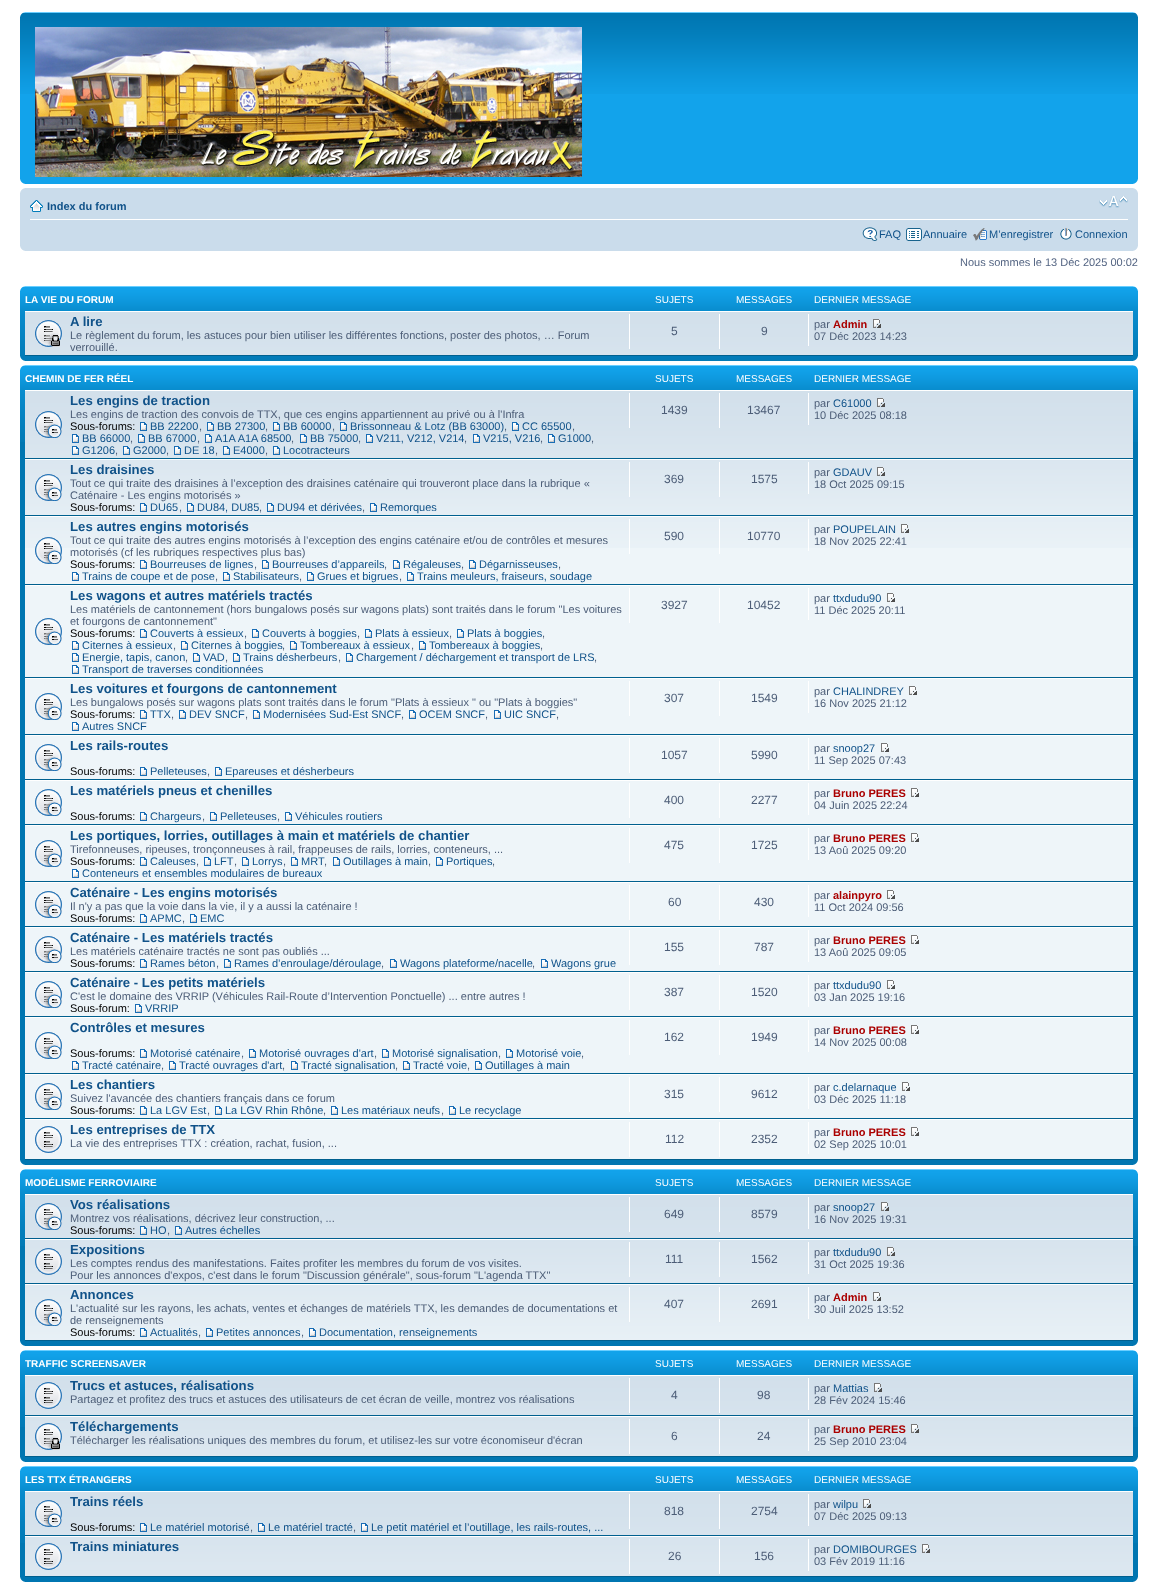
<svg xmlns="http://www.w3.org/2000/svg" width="1158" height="1591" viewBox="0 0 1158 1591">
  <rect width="100%" height="100%" fill="#ffffff"/>
  <rect x="20" y="94" width="1118" height="90" fill="#12a3eb"/>
  <image x="20" y="12" width="1118" height="82" href="img1.png"/>
  <image x="20" y="12" width="5" height="5" href="img2.png"/>
  <image x="1133" y="12" width="5" height="5" href="img3.png"/>
  <image x="35" y="27" width="547" height="150" href="img4.png"/>
  <image x="20" y="179" width="5" height="5" href="img5.png"/>
  <image x="1133" y="179" width="5" height="5" href="img6.png"/>
  <rect x="20" y="188" width="1118" height="63" fill="#cadceb"/>
  <image x="20" y="188" width="5" height="5" href="img7.png"/>
  <image x="1133" y="188" width="5" height="5" href="img8.png"/>
  <rect x="30" y="219" width="1098" height="1" fill="#ffffff"/>
  <image x="30" y="200" width="13" height="12" href="img9.png"/>
  <text x="47" y="210" font-family="Liberation Sans" font-size="11" font-weight="bold" fill="#105289">Index du forum</text>
  <image x="1099" y="196" width="29" height="12" href="img10.png"/>
  <image x="862" y="227" width="16" height="14" href="img11.png"/>
  <text x="879" y="238" font-family="Liberation Sans" font-size="11" fill="#105289">FAQ</text>
  <image x="906" y="228" width="16" height="13" href="img12.png"/>
  <text x="923" y="238" font-family="Liberation Sans" font-size="11" fill="#105289">Annuaire</text>
  <image x="973" y="228" width="14" height="13" href="img13.png"/>
  <text x="989" y="238" font-family="Liberation Sans" font-size="11" fill="#105289">M’enregistrer</text>
  <image x="1060" y="228" width="12" height="12" href="img14.png"/>
  <text x="1075" y="238" font-family="Liberation Sans" font-size="11" fill="#105289">Connexion</text>
  <image x="20" y="246" width="5" height="5" href="img15.png"/>
  <image x="1133" y="246" width="5" height="5" href="img16.png"/>
  <text x="960" y="266" font-family="Liberation Sans" font-size="11" fill="#536482">Nous sommes le 13 Déc 2025 00:02</text>
  <image x="20" y="286" width="1118" height="75" href="img17.png"/>
  <image x="20" y="286" width="5" height="5" href="img18.png"/>
  <image x="1133" y="286" width="5" height="5" href="img19.png"/>
  <text x="25" y="303" font-family="Liberation Sans" font-size="10" font-weight="bold" fill="#ffffff">LA VIE DU FORUM</text>
  <text x="655" y="303" font-family="Liberation Sans" font-size="10" fill="#ffffff">SUJETS</text>
  <text x="736" y="303" font-family="Liberation Sans" font-size="10" fill="#ffffff">MESSAGES</text>
  <text x="814" y="303" font-family="Liberation Sans" font-size="10" fill="#ffffff">DERNIER MESSAGE</text>
  <image x="25" y="312" width="1108" height="43" href="img20.png"/>
  <rect x="25" y="311" width="1108" height="1" fill="#ffffff"/>
  <rect x="25" y="355" width="1108" height="1" fill="#00608f"/>
  <image x="35" y="320" width="27" height="27" href="img21.png"/>
  <text x="70" y="326" font-family="Liberation Sans" font-size="13.2" font-weight="bold" fill="#105289">A lire</text>
  <text x="70" y="339" font-family="Liberation Sans" font-size="11" fill="#4c5d77">Le règlement du forum, les astuces pour bien utiliser les différentes fonctions, poster des photos, … Forum</text>
  <text x="70" y="351" font-family="Liberation Sans" font-size="11" fill="#4c5d77">verrouillé.</text>
  <rect x="629" y="314" width="1" height="35" fill="#ffffff"/>
  <text x="671" y="335" font-family="Liberation Sans" font-size="12" fill="#4c5d77">5</text>
  <rect x="719" y="314" width="1" height="35" fill="#ffffff"/>
  <text x="761" y="335" font-family="Liberation Sans" font-size="12" fill="#4c5d77">9</text>
  <rect x="808" y="314" width="1" height="32" fill="#ffffff"/>
  <text x="814" y="328" font-family="Liberation Sans" font-size="11" fill="#4c5d77">par</text>
  <text x="833" y="328" font-family="Liberation Sans" font-size="11" font-weight="bold" fill="#aa0000">Admin</text>
  <image x="873" y="319" width="8" height="9" href="img22.png"/>
  <text x="814" y="340" font-family="Liberation Sans" font-size="11" fill="#4c5d77">07 Déc 2023 14:23</text>
  <image x="20" y="356" width="5" height="5" href="img23.png"/>
  <image x="1133" y="356" width="5" height="5" href="img24.png"/>
  <rect x="20" y="442" width="1118" height="723" fill="#0076b1"/>
  <image x="20" y="365" width="1118" height="77" href="img25.png"/>
  <image x="20" y="365" width="5" height="5" href="img18.png"/>
  <image x="1133" y="365" width="5" height="5" href="img19.png"/>
  <text x="25" y="382" font-family="Liberation Sans" font-size="10" font-weight="bold" fill="#ffffff">CHEMIN DE FER RÉEL</text>
  <text x="655" y="382" font-family="Liberation Sans" font-size="10" fill="#ffffff">SUJETS</text>
  <text x="736" y="382" font-family="Liberation Sans" font-size="10" fill="#ffffff">MESSAGES</text>
  <text x="814" y="382" font-family="Liberation Sans" font-size="10" fill="#ffffff">DERNIER MESSAGE</text>
  <rect x="25" y="548" width="1108" height="611" fill="#eef5f9"/>
  <image x="25" y="391" width="1108" height="157" href="img26.png"/>
  <rect x="25" y="390" width="1108" height="1" fill="#ffffff"/>
  <rect x="25" y="458" width="1108" height="1" fill="#00608f"/>
  <image x="35" y="411" width="27" height="27" href="img27.png"/>
  <text x="70" y="405" font-family="Liberation Sans" font-size="13.2" font-weight="bold" fill="#105289">Les engins de traction</text>
  <text x="70" y="418" font-family="Liberation Sans" font-size="11" fill="#4c5d77">Les engins de traction des convois de TTX, que ces engins appartiennent au privé ou à l'Infra</text>
  <text x="70" y="430" font-family="Liberation Sans" font-size="11" fill="#000000">Sous-forums:</text>
  <image x="140" y="422" width="7" height="9" href="img28.png"/>
  <text x="150" y="430" font-family="Liberation Sans" font-size="11" fill="#105289">BB 22200</text>
  <text x="199" y="430" font-family="Liberation Sans" font-size="11" fill="#4c5d77">,</text>
  <image x="207" y="422" width="7" height="9" href="img28.png"/>
  <text x="217" y="430" font-family="Liberation Sans" font-size="11" fill="#105289">BB 27300</text>
  <text x="265" y="430" font-family="Liberation Sans" font-size="11" fill="#4c5d77">,</text>
  <image x="273" y="422" width="7" height="9" href="img28.png"/>
  <text x="283" y="430" font-family="Liberation Sans" font-size="11" fill="#105289">BB 60000</text>
  <text x="332" y="430" font-family="Liberation Sans" font-size="11" fill="#4c5d77">,</text>
  <image x="340" y="422" width="7" height="9" href="img28.png"/>
  <text x="350" y="430" font-family="Liberation Sans" font-size="11" fill="#105289">Brissonneau &amp; Lotz (BB 63000)</text>
  <text x="504" y="430" font-family="Liberation Sans" font-size="11" fill="#4c5d77">,</text>
  <image x="512" y="422" width="7" height="9" href="img28.png"/>
  <text x="522" y="430" font-family="Liberation Sans" font-size="11" fill="#105289">CC 65500</text>
  <text x="572" y="430" font-family="Liberation Sans" font-size="11" fill="#4c5d77">,</text>
  <image x="72" y="434" width="7" height="9" href="img29.png"/>
  <text x="82" y="442" font-family="Liberation Sans" font-size="11" fill="#105289">BB 66000</text>
  <text x="130" y="442" font-family="Liberation Sans" font-size="11" fill="#4c5d77">,</text>
  <image x="138" y="434" width="7" height="9" href="img29.png"/>
  <text x="148" y="442" font-family="Liberation Sans" font-size="11" fill="#105289">BB 67000</text>
  <text x="197" y="442" font-family="Liberation Sans" font-size="11" fill="#4c5d77">,</text>
  <image x="205" y="434" width="7" height="9" href="img29.png"/>
  <text x="215" y="442" font-family="Liberation Sans" font-size="11" fill="#105289">A1A A1A 68500</text>
  <text x="291" y="442" font-family="Liberation Sans" font-size="11" fill="#4c5d77">,</text>
  <image x="300" y="434" width="7" height="9" href="img29.png"/>
  <text x="310" y="442" font-family="Liberation Sans" font-size="11" fill="#105289">BB 75000</text>
  <text x="358" y="442" font-family="Liberation Sans" font-size="11" fill="#4c5d77">,</text>
  <image x="366" y="434" width="7" height="9" href="img29.png"/>
  <text x="376" y="442" font-family="Liberation Sans" font-size="11" fill="#105289">V211, V212, V214</text>
  <text x="464" y="442" font-family="Liberation Sans" font-size="11" fill="#4c5d77">,</text>
  <image x="473" y="434" width="7" height="9" href="img29.png"/>
  <text x="483" y="442" font-family="Liberation Sans" font-size="11" fill="#105289">V215, V216</text>
  <text x="540" y="442" font-family="Liberation Sans" font-size="11" fill="#4c5d77">,</text>
  <image x="548" y="434" width="7" height="9" href="img29.png"/>
  <text x="558" y="442" font-family="Liberation Sans" font-size="11" fill="#105289">G1000</text>
  <text x="591" y="442" font-family="Liberation Sans" font-size="11" fill="#4c5d77">,</text>
  <image x="72" y="446" width="7" height="9" href="img30.png"/>
  <text x="82" y="454" font-family="Liberation Sans" font-size="11" fill="#105289">G1206</text>
  <text x="115" y="454" font-family="Liberation Sans" font-size="11" fill="#4c5d77">,</text>
  <image x="123" y="446" width="7" height="9" href="img30.png"/>
  <text x="133" y="454" font-family="Liberation Sans" font-size="11" fill="#105289">G2000</text>
  <text x="166" y="454" font-family="Liberation Sans" font-size="11" fill="#4c5d77">,</text>
  <image x="174" y="446" width="7" height="9" href="img30.png"/>
  <text x="184" y="454" font-family="Liberation Sans" font-size="11" fill="#105289">DE 18</text>
  <text x="215" y="454" font-family="Liberation Sans" font-size="11" fill="#4c5d77">,</text>
  <image x="223" y="446" width="7" height="9" href="img30.png"/>
  <text x="233" y="454" font-family="Liberation Sans" font-size="11" fill="#105289">E4000</text>
  <text x="265" y="454" font-family="Liberation Sans" font-size="11" fill="#4c5d77">,</text>
  <image x="273" y="446" width="7" height="9" href="img30.png"/>
  <text x="283" y="454" font-family="Liberation Sans" font-size="11" fill="#105289">Locotracteurs</text>
  <rect x="629" y="393" width="1" height="35" fill="#ffffff"/>
  <text x="661" y="414" font-family="Liberation Sans" font-size="12" fill="#4c5d77">1439</text>
  <rect x="719" y="393" width="1" height="35" fill="#ffffff"/>
  <text x="747" y="414" font-family="Liberation Sans" font-size="12" fill="#4c5d77">13467</text>
  <rect x="808" y="393" width="1" height="32" fill="#ffffff"/>
  <text x="814" y="407" font-family="Liberation Sans" font-size="11" fill="#4c5d77">par</text>
  <text x="833" y="407" font-family="Liberation Sans" font-size="11" fill="#105289">C61000</text>
  <image x="877" y="398" width="8" height="9" href="img22.png"/>
  <text x="814" y="419" font-family="Liberation Sans" font-size="11" fill="#4c5d77">10 Déc 2025 08:18</text>
  <rect x="25" y="459" width="1108" height="1" fill="#ffffff"/>
  <rect x="25" y="515" width="1108" height="1" fill="#00608f"/>
  <image x="35" y="474" width="27" height="27" href="img31.png"/>
  <text x="70" y="474" font-family="Liberation Sans" font-size="13.2" font-weight="bold" fill="#105289">Les draisines</text>
  <text x="70" y="487" font-family="Liberation Sans" font-size="11" fill="#4c5d77">Tout ce qui traite des draisines à l’exception des draisines caténaire qui trouveront place dans la rubrique «</text>
  <text x="70" y="499" font-family="Liberation Sans" font-size="11" fill="#4c5d77">Caténaire - Les engins motorisés »</text>
  <text x="70" y="511" font-family="Liberation Sans" font-size="11" fill="#000000">Sous-forums:</text>
  <image x="140" y="503" width="7" height="9" href="img32.png"/>
  <text x="150" y="511" font-family="Liberation Sans" font-size="11" fill="#105289">DU65</text>
  <text x="179" y="511" font-family="Liberation Sans" font-size="11" fill="#4c5d77">,</text>
  <image x="187" y="503" width="7" height="9" href="img32.png"/>
  <text x="197" y="511" font-family="Liberation Sans" font-size="11" fill="#105289">DU84, DU85</text>
  <text x="259" y="511" font-family="Liberation Sans" font-size="11" fill="#4c5d77">,</text>
  <image x="267" y="503" width="7" height="9" href="img32.png"/>
  <text x="277" y="511" font-family="Liberation Sans" font-size="11" fill="#105289">DU94 et dérivées</text>
  <text x="362" y="511" font-family="Liberation Sans" font-size="11" fill="#4c5d77">,</text>
  <image x="370" y="503" width="7" height="9" href="img32.png"/>
  <text x="380" y="511" font-family="Liberation Sans" font-size="11" fill="#105289">Remorques</text>
  <rect x="629" y="462" width="1" height="35" fill="#ffffff"/>
  <text x="664" y="483" font-family="Liberation Sans" font-size="12" fill="#4c5d77">369</text>
  <rect x="719" y="462" width="1" height="35" fill="#ffffff"/>
  <text x="751" y="483" font-family="Liberation Sans" font-size="12" fill="#4c5d77">1575</text>
  <rect x="808" y="462" width="1" height="32" fill="#ffffff"/>
  <text x="814" y="476" font-family="Liberation Sans" font-size="11" fill="#4c5d77">par</text>
  <text x="833" y="476" font-family="Liberation Sans" font-size="11" fill="#105289">GDAUV</text>
  <image x="877" y="467" width="8" height="9" href="img33.png"/>
  <text x="814" y="488" font-family="Liberation Sans" font-size="11" fill="#4c5d77">18 Oct 2025 09:15</text>
  <rect x="25" y="516" width="1108" height="1" fill="#ffffff"/>
  <rect x="25" y="584" width="1108" height="1" fill="#00608f"/>
  <image x="35" y="537" width="27" height="27" href="img34.png"/>
  <text x="70" y="531" font-family="Liberation Sans" font-size="13.2" font-weight="bold" fill="#105289">Les autres engins motorisés</text>
  <text x="70" y="544" font-family="Liberation Sans" font-size="11" fill="#4c5d77">Tout ce qui traite des autres engins motorisés à l’exception des engins caténaire et/ou de contrôles et mesures</text>
  <text x="70" y="556" font-family="Liberation Sans" font-size="11" fill="#4c5d77">motorisés (cf les rubriques respectives plus bas)</text>
  <text x="70" y="568" font-family="Liberation Sans" font-size="11" fill="#000000">Sous-forums:</text>
  <image x="140" y="560" width="7" height="9" href="img35.png"/>
  <text x="150" y="568" font-family="Liberation Sans" font-size="11" fill="#105289">Bourreuses de lignes</text>
  <text x="254" y="568" font-family="Liberation Sans" font-size="11" fill="#4c5d77">,</text>
  <image x="262" y="560" width="7" height="9" href="img35.png"/>
  <text x="272" y="568" font-family="Liberation Sans" font-size="11" fill="#105289">Bourreuses d’appareils</text>
  <text x="384" y="568" font-family="Liberation Sans" font-size="11" fill="#4c5d77">,</text>
  <image x="393" y="560" width="7" height="9" href="img35.png"/>
  <text x="403" y="568" font-family="Liberation Sans" font-size="11" fill="#105289">Régaleuses</text>
  <text x="461" y="568" font-family="Liberation Sans" font-size="11" fill="#4c5d77">,</text>
  <image x="469" y="560" width="7" height="9" href="img35.png"/>
  <text x="479" y="568" font-family="Liberation Sans" font-size="11" fill="#105289">Dégarnisseuses</text>
  <text x="558" y="568" font-family="Liberation Sans" font-size="11" fill="#4c5d77">,</text>
  <image x="72" y="572" width="7" height="9" href="img35.png"/>
  <text x="82" y="580" font-family="Liberation Sans" font-size="11" fill="#105289">Trains de coupe et de pose</text>
  <text x="215" y="580" font-family="Liberation Sans" font-size="11" fill="#4c5d77">,</text>
  <image x="223" y="572" width="7" height="9" href="img35.png"/>
  <text x="233" y="580" font-family="Liberation Sans" font-size="11" fill="#105289">Stabilisateurs</text>
  <text x="299" y="580" font-family="Liberation Sans" font-size="11" fill="#4c5d77">,</text>
  <image x="307" y="572" width="7" height="9" href="img35.png"/>
  <text x="317" y="580" font-family="Liberation Sans" font-size="11" fill="#105289">Grues et bigrues</text>
  <text x="399" y="580" font-family="Liberation Sans" font-size="11" fill="#4c5d77">,</text>
  <image x="407" y="572" width="7" height="9" href="img35.png"/>
  <text x="417" y="580" font-family="Liberation Sans" font-size="11" fill="#105289">Trains meuleurs, fraiseurs, soudage</text>
  <rect x="629" y="519" width="1" height="35" fill="#ffffff"/>
  <text x="664" y="540" font-family="Liberation Sans" font-size="12" fill="#4c5d77">590</text>
  <rect x="719" y="519" width="1" height="35" fill="#ffffff"/>
  <text x="747" y="540" font-family="Liberation Sans" font-size="12" fill="#4c5d77">10770</text>
  <rect x="808" y="519" width="1" height="32" fill="#ffffff"/>
  <text x="814" y="533" font-family="Liberation Sans" font-size="11" fill="#4c5d77">par</text>
  <text x="833" y="533" font-family="Liberation Sans" font-size="11" fill="#105289">POUPELAIN</text>
  <image x="901" y="524" width="8" height="9" href="img36.png"/>
  <text x="814" y="545" font-family="Liberation Sans" font-size="11" fill="#4c5d77">18 Nov 2025 22:41</text>
  <rect x="25" y="585" width="1108" height="1" fill="#ffffff"/>
  <rect x="25" y="677" width="1108" height="1" fill="#00608f"/>
  <image x="35" y="618" width="27" height="27" href="img37.png"/>
  <text x="70" y="600" font-family="Liberation Sans" font-size="13.2" font-weight="bold" fill="#105289">Les wagons et autres matériels tractés</text>
  <text x="70" y="613" font-family="Liberation Sans" font-size="11" fill="#4c5d77">Les matériels de cantonnement (hors bungalows posés sur wagons plats) sont traités dans le forum "Les voitures</text>
  <text x="70" y="625" font-family="Liberation Sans" font-size="11" fill="#4c5d77">et fourgons de cantonnement"</text>
  <text x="70" y="637" font-family="Liberation Sans" font-size="11" fill="#000000">Sous-forums:</text>
  <image x="140" y="629" width="7" height="9" href="img35.png"/>
  <text x="150" y="637" font-family="Liberation Sans" font-size="11" fill="#105289">Couverts à essieux</text>
  <text x="244" y="637" font-family="Liberation Sans" font-size="11" fill="#4c5d77">,</text>
  <image x="252" y="629" width="7" height="9" href="img35.png"/>
  <text x="262" y="637" font-family="Liberation Sans" font-size="11" fill="#105289">Couverts à boggies</text>
  <text x="357" y="637" font-family="Liberation Sans" font-size="11" fill="#4c5d77">,</text>
  <image x="365" y="629" width="7" height="9" href="img35.png"/>
  <text x="375" y="637" font-family="Liberation Sans" font-size="11" fill="#105289">Plats à essieux</text>
  <text x="449" y="637" font-family="Liberation Sans" font-size="11" fill="#4c5d77">,</text>
  <image x="457" y="629" width="7" height="9" href="img35.png"/>
  <text x="467" y="637" font-family="Liberation Sans" font-size="11" fill="#105289">Plats à boggies</text>
  <text x="542" y="637" font-family="Liberation Sans" font-size="11" fill="#4c5d77">,</text>
  <image x="72" y="641" width="7" height="9" href="img35.png"/>
  <text x="82" y="649" font-family="Liberation Sans" font-size="11" fill="#105289">Citernes à essieux</text>
  <text x="173" y="649" font-family="Liberation Sans" font-size="11" fill="#4c5d77">,</text>
  <image x="181" y="641" width="7" height="9" href="img35.png"/>
  <text x="191" y="649" font-family="Liberation Sans" font-size="11" fill="#105289">Citernes à boggies</text>
  <text x="282" y="649" font-family="Liberation Sans" font-size="11" fill="#4c5d77">,</text>
  <image x="290" y="641" width="7" height="9" href="img35.png"/>
  <text x="300" y="649" font-family="Liberation Sans" font-size="11" fill="#105289">Tombereaux à essieux</text>
  <text x="411" y="649" font-family="Liberation Sans" font-size="11" fill="#4c5d77">,</text>
  <image x="419" y="641" width="7" height="9" href="img35.png"/>
  <text x="429" y="649" font-family="Liberation Sans" font-size="11" fill="#105289">Tombereaux à boggies</text>
  <text x="540" y="649" font-family="Liberation Sans" font-size="11" fill="#4c5d77">,</text>
  <image x="72" y="653" width="7" height="9" href="img35.png"/>
  <text x="82" y="661" font-family="Liberation Sans" font-size="11" fill="#105289">Energie, tapis, canon</text>
  <text x="185" y="661" font-family="Liberation Sans" font-size="11" fill="#4c5d77">,</text>
  <image x="193" y="653" width="7" height="9" href="img35.png"/>
  <text x="203" y="661" font-family="Liberation Sans" font-size="11" fill="#105289">VAD</text>
  <text x="225" y="661" font-family="Liberation Sans" font-size="11" fill="#4c5d77">,</text>
  <image x="233" y="653" width="7" height="9" href="img35.png"/>
  <text x="243" y="661" font-family="Liberation Sans" font-size="11" fill="#105289">Trains désherbeurs</text>
  <text x="338" y="661" font-family="Liberation Sans" font-size="11" fill="#4c5d77">,</text>
  <image x="346" y="653" width="7" height="9" href="img35.png"/>
  <text x="356" y="661" font-family="Liberation Sans" font-size="11" fill="#105289">Chargement / déchargement et transport de LRS</text>
  <text x="594" y="661" font-family="Liberation Sans" font-size="11" fill="#4c5d77">,</text>
  <image x="72" y="665" width="7" height="9" href="img35.png"/>
  <text x="82" y="673" font-family="Liberation Sans" font-size="11" fill="#105289">Transport de traverses conditionnées</text>
  <rect x="629" y="588" width="1" height="35" fill="#ffffff"/>
  <text x="661" y="609" font-family="Liberation Sans" font-size="12" fill="#4c5d77">3927</text>
  <rect x="719" y="588" width="1" height="35" fill="#ffffff"/>
  <text x="747" y="609" font-family="Liberation Sans" font-size="12" fill="#4c5d77">10452</text>
  <rect x="808" y="588" width="1" height="32" fill="#ffffff"/>
  <text x="814" y="602" font-family="Liberation Sans" font-size="11" fill="#4c5d77">par</text>
  <text x="833" y="602" font-family="Liberation Sans" font-size="11" fill="#105289">ttxdudu90</text>
  <image x="887" y="593" width="8" height="9" href="img38.png"/>
  <text x="814" y="614" font-family="Liberation Sans" font-size="11" fill="#4c5d77">11 Déc 2025 20:11</text>
  <rect x="25" y="678" width="1108" height="1" fill="#ffffff"/>
  <rect x="25" y="734" width="1108" height="1" fill="#00608f"/>
  <image x="35" y="693" width="27" height="27" href="img37.png"/>
  <text x="70" y="693" font-family="Liberation Sans" font-size="13.2" font-weight="bold" fill="#105289">Les voitures et fourgons de cantonnement</text>
  <text x="70" y="706" font-family="Liberation Sans" font-size="11" fill="#4c5d77">Les bungalows posés sur wagons plats sont traités dans le forum "Plats à essieux " ou "Plats à boggies"</text>
  <text x="70" y="718" font-family="Liberation Sans" font-size="11" fill="#000000">Sous-forums:</text>
  <image x="140" y="710" width="7" height="9" href="img35.png"/>
  <text x="150" y="718" font-family="Liberation Sans" font-size="11" fill="#105289">TTX</text>
  <text x="171" y="718" font-family="Liberation Sans" font-size="11" fill="#4c5d77">,</text>
  <image x="179" y="710" width="7" height="9" href="img35.png"/>
  <text x="189" y="718" font-family="Liberation Sans" font-size="11" fill="#105289">DEV SNCF</text>
  <text x="245" y="718" font-family="Liberation Sans" font-size="11" fill="#4c5d77">,</text>
  <image x="253" y="710" width="7" height="9" href="img35.png"/>
  <text x="263" y="718" font-family="Liberation Sans" font-size="11" fill="#105289">Modernisées Sud-Est SNCF</text>
  <text x="401" y="718" font-family="Liberation Sans" font-size="11" fill="#4c5d77">,</text>
  <image x="409" y="710" width="7" height="9" href="img35.png"/>
  <text x="419" y="718" font-family="Liberation Sans" font-size="11" fill="#105289">OCEM SNCF</text>
  <text x="485" y="718" font-family="Liberation Sans" font-size="11" fill="#4c5d77">,</text>
  <image x="494" y="710" width="7" height="9" href="img35.png"/>
  <text x="504" y="718" font-family="Liberation Sans" font-size="11" fill="#105289">UIC SNCF</text>
  <text x="556" y="718" font-family="Liberation Sans" font-size="11" fill="#4c5d77">,</text>
  <image x="72" y="722" width="7" height="9" href="img35.png"/>
  <text x="82" y="730" font-family="Liberation Sans" font-size="11" fill="#105289">Autres SNCF</text>
  <rect x="629" y="681" width="1" height="35" fill="#ffffff"/>
  <text x="664" y="702" font-family="Liberation Sans" font-size="12" fill="#4c5d77">307</text>
  <rect x="719" y="681" width="1" height="35" fill="#ffffff"/>
  <text x="751" y="702" font-family="Liberation Sans" font-size="12" fill="#4c5d77">1549</text>
  <rect x="808" y="681" width="1" height="32" fill="#ffffff"/>
  <text x="814" y="695" font-family="Liberation Sans" font-size="11" fill="#4c5d77">par</text>
  <text x="833" y="695" font-family="Liberation Sans" font-size="11" fill="#105289">CHALINDREY</text>
  <image x="909" y="686" width="8" height="9" href="img38.png"/>
  <text x="814" y="707" font-family="Liberation Sans" font-size="11" fill="#4c5d77">16 Nov 2025 21:12</text>
  <rect x="25" y="735" width="1108" height="1" fill="#ffffff"/>
  <rect x="25" y="779" width="1108" height="1" fill="#00608f"/>
  <image x="35" y="744" width="27" height="27" href="img37.png"/>
  <text x="70" y="750" font-family="Liberation Sans" font-size="13.2" font-weight="bold" fill="#105289">Les rails-routes</text>
  <text x="70" y="775" font-family="Liberation Sans" font-size="11" fill="#000000">Sous-forums:</text>
  <image x="140" y="767" width="7" height="9" href="img35.png"/>
  <text x="150" y="775" font-family="Liberation Sans" font-size="11" fill="#105289">Pelleteuses</text>
  <text x="207" y="775" font-family="Liberation Sans" font-size="11" fill="#4c5d77">,</text>
  <image x="215" y="767" width="7" height="9" href="img35.png"/>
  <text x="225" y="775" font-family="Liberation Sans" font-size="11" fill="#105289">Epareuses et désherbeurs</text>
  <rect x="629" y="738" width="1" height="35" fill="#ffffff"/>
  <text x="661" y="759" font-family="Liberation Sans" font-size="12" fill="#4c5d77">1057</text>
  <rect x="719" y="738" width="1" height="35" fill="#ffffff"/>
  <text x="751" y="759" font-family="Liberation Sans" font-size="12" fill="#4c5d77">5990</text>
  <rect x="808" y="738" width="1" height="32" fill="#ffffff"/>
  <text x="814" y="752" font-family="Liberation Sans" font-size="11" fill="#4c5d77">par</text>
  <text x="833" y="752" font-family="Liberation Sans" font-size="11" fill="#105289">snoop27</text>
  <image x="881" y="743" width="8" height="9" href="img38.png"/>
  <text x="814" y="764" font-family="Liberation Sans" font-size="11" fill="#4c5d77">11 Sep 2025 07:43</text>
  <rect x="25" y="780" width="1108" height="1" fill="#ffffff"/>
  <rect x="25" y="824" width="1108" height="1" fill="#00608f"/>
  <image x="35" y="789" width="27" height="27" href="img37.png"/>
  <text x="70" y="795" font-family="Liberation Sans" font-size="13.2" font-weight="bold" fill="#105289">Les matériels pneus et chenilles</text>
  <text x="70" y="820" font-family="Liberation Sans" font-size="11" fill="#000000">Sous-forums:</text>
  <image x="140" y="812" width="7" height="9" href="img35.png"/>
  <text x="150" y="820" font-family="Liberation Sans" font-size="11" fill="#105289">Chargeurs</text>
  <text x="202" y="820" font-family="Liberation Sans" font-size="11" fill="#4c5d77">,</text>
  <image x="210" y="812" width="7" height="9" href="img35.png"/>
  <text x="220" y="820" font-family="Liberation Sans" font-size="11" fill="#105289">Pelleteuses</text>
  <text x="277" y="820" font-family="Liberation Sans" font-size="11" fill="#4c5d77">,</text>
  <image x="285" y="812" width="7" height="9" href="img35.png"/>
  <text x="295" y="820" font-family="Liberation Sans" font-size="11" fill="#105289">Véhicules routiers</text>
  <rect x="629" y="783" width="1" height="35" fill="#ffffff"/>
  <text x="664" y="804" font-family="Liberation Sans" font-size="12" fill="#4c5d77">400</text>
  <rect x="719" y="783" width="1" height="35" fill="#ffffff"/>
  <text x="751" y="804" font-family="Liberation Sans" font-size="12" fill="#4c5d77">2277</text>
  <rect x="808" y="783" width="1" height="32" fill="#ffffff"/>
  <text x="814" y="797" font-family="Liberation Sans" font-size="11" fill="#4c5d77">par</text>
  <text x="833" y="797" font-family="Liberation Sans" font-size="11" font-weight="bold" fill="#aa0000">Bruno PERES</text>
  <image x="911" y="788" width="8" height="9" href="img38.png"/>
  <text x="814" y="809" font-family="Liberation Sans" font-size="11" fill="#4c5d77">04 Juin 2025 22:24</text>
  <rect x="25" y="825" width="1108" height="1" fill="#ffffff"/>
  <rect x="25" y="881" width="1108" height="1" fill="#00608f"/>
  <image x="35" y="840" width="27" height="27" href="img37.png"/>
  <text x="70" y="840" font-family="Liberation Sans" font-size="13.2" font-weight="bold" fill="#105289">Les portiques, lorries, outillages à main et matériels de chantier</text>
  <text x="70" y="853" font-family="Liberation Sans" font-size="11" fill="#4c5d77">Tirefonneuses, ripeuses, tronçonneuses à rail, frappeuses de rails, lorries, conteneurs, ...</text>
  <text x="70" y="865" font-family="Liberation Sans" font-size="11" fill="#000000">Sous-forums:</text>
  <image x="140" y="857" width="7" height="9" href="img35.png"/>
  <text x="150" y="865" font-family="Liberation Sans" font-size="11" fill="#105289">Caleuses</text>
  <text x="196" y="865" font-family="Liberation Sans" font-size="11" fill="#4c5d77">,</text>
  <image x="204" y="857" width="7" height="9" href="img35.png"/>
  <text x="214" y="865" font-family="Liberation Sans" font-size="11" fill="#105289">LFT</text>
  <text x="234" y="865" font-family="Liberation Sans" font-size="11" fill="#4c5d77">,</text>
  <image x="242" y="857" width="7" height="9" href="img35.png"/>
  <text x="252" y="865" font-family="Liberation Sans" font-size="11" fill="#105289">Lorrys</text>
  <text x="283" y="865" font-family="Liberation Sans" font-size="11" fill="#4c5d77">,</text>
  <image x="291" y="857" width="7" height="9" href="img35.png"/>
  <text x="301" y="865" font-family="Liberation Sans" font-size="11" fill="#105289">MRT</text>
  <text x="324" y="865" font-family="Liberation Sans" font-size="11" fill="#4c5d77">,</text>
  <image x="333" y="857" width="7" height="9" href="img35.png"/>
  <text x="343" y="865" font-family="Liberation Sans" font-size="11" fill="#105289">Outillages à main</text>
  <text x="428" y="865" font-family="Liberation Sans" font-size="11" fill="#4c5d77">,</text>
  <image x="436" y="857" width="7" height="9" href="img35.png"/>
  <text x="446" y="865" font-family="Liberation Sans" font-size="11" fill="#105289">Portiques</text>
  <text x="492" y="865" font-family="Liberation Sans" font-size="11" fill="#4c5d77">,</text>
  <image x="72" y="869" width="7" height="9" href="img35.png"/>
  <text x="82" y="877" font-family="Liberation Sans" font-size="11" fill="#105289">Conteneurs et ensembles modulaires de bureaux</text>
  <rect x="629" y="828" width="1" height="35" fill="#ffffff"/>
  <text x="664" y="849" font-family="Liberation Sans" font-size="12" fill="#4c5d77">475</text>
  <rect x="719" y="828" width="1" height="35" fill="#ffffff"/>
  <text x="751" y="849" font-family="Liberation Sans" font-size="12" fill="#4c5d77">1725</text>
  <rect x="808" y="828" width="1" height="32" fill="#ffffff"/>
  <text x="814" y="842" font-family="Liberation Sans" font-size="11" fill="#4c5d77">par</text>
  <text x="833" y="842" font-family="Liberation Sans" font-size="11" font-weight="bold" fill="#aa0000">Bruno PERES</text>
  <image x="911" y="833" width="8" height="9" href="img38.png"/>
  <text x="814" y="854" font-family="Liberation Sans" font-size="11" fill="#4c5d77">13 Aoû 2025 09:20</text>
  <rect x="25" y="882" width="1108" height="1" fill="#ffffff"/>
  <rect x="25" y="926" width="1108" height="1" fill="#00608f"/>
  <image x="35" y="891" width="27" height="27" href="img37.png"/>
  <text x="70" y="897" font-family="Liberation Sans" font-size="13.2" font-weight="bold" fill="#105289">Caténaire - Les engins motorisés</text>
  <text x="70" y="910" font-family="Liberation Sans" font-size="11" fill="#4c5d77">Il n'y a pas que la voie dans la vie, il y a aussi la caténaire !</text>
  <text x="70" y="922" font-family="Liberation Sans" font-size="11" fill="#000000">Sous-forums:</text>
  <image x="140" y="914" width="7" height="9" href="img35.png"/>
  <text x="150" y="922" font-family="Liberation Sans" font-size="11" fill="#105289">APMC</text>
  <text x="182" y="922" font-family="Liberation Sans" font-size="11" fill="#4c5d77">,</text>
  <image x="190" y="914" width="7" height="9" href="img35.png"/>
  <text x="200" y="922" font-family="Liberation Sans" font-size="11" fill="#105289">EMC</text>
  <rect x="629" y="885" width="1" height="35" fill="#ffffff"/>
  <text x="668" y="906" font-family="Liberation Sans" font-size="12" fill="#4c5d77">60</text>
  <rect x="719" y="885" width="1" height="35" fill="#ffffff"/>
  <text x="754" y="906" font-family="Liberation Sans" font-size="12" fill="#4c5d77">430</text>
  <rect x="808" y="885" width="1" height="32" fill="#ffffff"/>
  <text x="814" y="899" font-family="Liberation Sans" font-size="11" fill="#4c5d77">par</text>
  <text x="833" y="899" font-family="Liberation Sans" font-size="11" font-weight="bold" fill="#aa0000">alainpyro</text>
  <image x="887" y="890" width="8" height="9" href="img38.png"/>
  <text x="814" y="911" font-family="Liberation Sans" font-size="11" fill="#4c5d77">11 Oct 2024 09:56</text>
  <rect x="25" y="927" width="1108" height="1" fill="#ffffff"/>
  <rect x="25" y="971" width="1108" height="1" fill="#00608f"/>
  <image x="35" y="936" width="27" height="27" href="img37.png"/>
  <text x="70" y="942" font-family="Liberation Sans" font-size="13.2" font-weight="bold" fill="#105289">Caténaire - Les matériels tractés</text>
  <text x="70" y="955" font-family="Liberation Sans" font-size="11" fill="#4c5d77">Les matériels caténaire tractés ne sont pas oubliés ...</text>
  <text x="70" y="967" font-family="Liberation Sans" font-size="11" fill="#000000">Sous-forums:</text>
  <image x="140" y="959" width="7" height="9" href="img35.png"/>
  <text x="150" y="967" font-family="Liberation Sans" font-size="11" fill="#105289">Rames béton</text>
  <text x="216" y="967" font-family="Liberation Sans" font-size="11" fill="#4c5d77">,</text>
  <image x="224" y="959" width="7" height="9" href="img35.png"/>
  <text x="234" y="967" font-family="Liberation Sans" font-size="11" fill="#105289">Rames d’enroulage/déroulage</text>
  <text x="381" y="967" font-family="Liberation Sans" font-size="11" fill="#4c5d77">,</text>
  <image x="390" y="959" width="7" height="9" href="img35.png"/>
  <text x="400" y="967" font-family="Liberation Sans" font-size="11" fill="#105289">Wagons plateforme/nacelle</text>
  <text x="532" y="967" font-family="Liberation Sans" font-size="11" fill="#4c5d77">,</text>
  <image x="541" y="959" width="7" height="9" href="img35.png"/>
  <text x="551" y="967" font-family="Liberation Sans" font-size="11" fill="#105289">Wagons grue</text>
  <rect x="629" y="930" width="1" height="35" fill="#ffffff"/>
  <text x="664" y="951" font-family="Liberation Sans" font-size="12" fill="#4c5d77">155</text>
  <rect x="719" y="930" width="1" height="35" fill="#ffffff"/>
  <text x="754" y="951" font-family="Liberation Sans" font-size="12" fill="#4c5d77">787</text>
  <rect x="808" y="930" width="1" height="32" fill="#ffffff"/>
  <text x="814" y="944" font-family="Liberation Sans" font-size="11" fill="#4c5d77">par</text>
  <text x="833" y="944" font-family="Liberation Sans" font-size="11" font-weight="bold" fill="#aa0000">Bruno PERES</text>
  <image x="911" y="935" width="8" height="9" href="img38.png"/>
  <text x="814" y="956" font-family="Liberation Sans" font-size="11" fill="#4c5d77">13 Aoû 2025 09:05</text>
  <rect x="25" y="972" width="1108" height="1" fill="#ffffff"/>
  <rect x="25" y="1016" width="1108" height="1" fill="#00608f"/>
  <image x="35" y="981" width="27" height="27" href="img37.png"/>
  <text x="70" y="987" font-family="Liberation Sans" font-size="13.2" font-weight="bold" fill="#105289">Caténaire - Les petits matériels</text>
  <text x="70" y="1000" font-family="Liberation Sans" font-size="11" fill="#4c5d77">C'est le domaine des VRRIP (Véhicules Rail-Route d’Intervention Ponctuelle) ... entre autres !</text>
  <text x="70" y="1012" font-family="Liberation Sans" font-size="11" fill="#000000">Sous-forum:</text>
  <image x="135" y="1004" width="7" height="9" href="img35.png"/>
  <text x="145" y="1012" font-family="Liberation Sans" font-size="11" fill="#105289">VRRIP</text>
  <rect x="629" y="975" width="1" height="35" fill="#ffffff"/>
  <text x="664" y="996" font-family="Liberation Sans" font-size="12" fill="#4c5d77">387</text>
  <rect x="719" y="975" width="1" height="35" fill="#ffffff"/>
  <text x="751" y="996" font-family="Liberation Sans" font-size="12" fill="#4c5d77">1520</text>
  <rect x="808" y="975" width="1" height="32" fill="#ffffff"/>
  <text x="814" y="989" font-family="Liberation Sans" font-size="11" fill="#4c5d77">par</text>
  <text x="833" y="989" font-family="Liberation Sans" font-size="11" fill="#105289">ttxdudu90</text>
  <image x="887" y="980" width="8" height="9" href="img38.png"/>
  <text x="814" y="1001" font-family="Liberation Sans" font-size="11" fill="#4c5d77">03 Jan 2025 19:16</text>
  <rect x="25" y="1017" width="1108" height="1" fill="#ffffff"/>
  <rect x="25" y="1073" width="1108" height="1" fill="#00608f"/>
  <image x="35" y="1032" width="27" height="27" href="img37.png"/>
  <text x="70" y="1032" font-family="Liberation Sans" font-size="13.2" font-weight="bold" fill="#105289">Contrôles et mesures</text>
  <text x="70" y="1057" font-family="Liberation Sans" font-size="11" fill="#000000">Sous-forums:</text>
  <image x="140" y="1049" width="7" height="9" href="img35.png"/>
  <text x="150" y="1057" font-family="Liberation Sans" font-size="11" fill="#105289">Motorisé caténaire</text>
  <text x="241" y="1057" font-family="Liberation Sans" font-size="11" fill="#4c5d77">,</text>
  <image x="249" y="1049" width="7" height="9" href="img35.png"/>
  <text x="259" y="1057" font-family="Liberation Sans" font-size="11" fill="#105289">Motorisé ouvrages d'art</text>
  <text x="374" y="1057" font-family="Liberation Sans" font-size="11" fill="#4c5d77">,</text>
  <image x="382" y="1049" width="7" height="9" href="img35.png"/>
  <text x="392" y="1057" font-family="Liberation Sans" font-size="11" fill="#105289">Motorisé signalisation</text>
  <text x="498" y="1057" font-family="Liberation Sans" font-size="11" fill="#4c5d77">,</text>
  <image x="506" y="1049" width="7" height="9" href="img35.png"/>
  <text x="516" y="1057" font-family="Liberation Sans" font-size="11" fill="#105289">Motorisé voie</text>
  <text x="581" y="1057" font-family="Liberation Sans" font-size="11" fill="#4c5d77">,</text>
  <image x="72" y="1061" width="7" height="9" href="img35.png"/>
  <text x="82" y="1069" font-family="Liberation Sans" font-size="11" fill="#105289">Tracté caténaire</text>
  <text x="161" y="1069" font-family="Liberation Sans" font-size="11" fill="#4c5d77">,</text>
  <image x="169" y="1061" width="7" height="9" href="img35.png"/>
  <text x="179" y="1069" font-family="Liberation Sans" font-size="11" fill="#105289">Tracté ouvrages d'art</text>
  <text x="282" y="1069" font-family="Liberation Sans" font-size="11" fill="#4c5d77">,</text>
  <image x="291" y="1061" width="7" height="9" href="img35.png"/>
  <text x="301" y="1069" font-family="Liberation Sans" font-size="11" fill="#105289">Tracté signalisation</text>
  <text x="395" y="1069" font-family="Liberation Sans" font-size="11" fill="#4c5d77">,</text>
  <image x="403" y="1061" width="7" height="9" href="img35.png"/>
  <text x="413" y="1069" font-family="Liberation Sans" font-size="11" fill="#105289">Tracté voie</text>
  <text x="467" y="1069" font-family="Liberation Sans" font-size="11" fill="#4c5d77">,</text>
  <image x="475" y="1061" width="7" height="9" href="img35.png"/>
  <text x="485" y="1069" font-family="Liberation Sans" font-size="11" fill="#105289">Outillages à main</text>
  <rect x="629" y="1020" width="1" height="35" fill="#ffffff"/>
  <text x="664" y="1041" font-family="Liberation Sans" font-size="12" fill="#4c5d77">162</text>
  <rect x="719" y="1020" width="1" height="35" fill="#ffffff"/>
  <text x="751" y="1041" font-family="Liberation Sans" font-size="12" fill="#4c5d77">1949</text>
  <rect x="808" y="1020" width="1" height="32" fill="#ffffff"/>
  <text x="814" y="1034" font-family="Liberation Sans" font-size="11" fill="#4c5d77">par</text>
  <text x="833" y="1034" font-family="Liberation Sans" font-size="11" font-weight="bold" fill="#aa0000">Bruno PERES</text>
  <image x="911" y="1025" width="8" height="9" href="img38.png"/>
  <text x="814" y="1046" font-family="Liberation Sans" font-size="11" fill="#4c5d77">14 Nov 2025 00:08</text>
  <rect x="25" y="1074" width="1108" height="1" fill="#ffffff"/>
  <rect x="25" y="1118" width="1108" height="1" fill="#00608f"/>
  <image x="35" y="1083" width="27" height="27" href="img37.png"/>
  <text x="70" y="1089" font-family="Liberation Sans" font-size="13.2" font-weight="bold" fill="#105289">Les chantiers</text>
  <text x="70" y="1102" font-family="Liberation Sans" font-size="11" fill="#4c5d77">Suivez l'avancée des chantiers français dans ce forum</text>
  <text x="70" y="1114" font-family="Liberation Sans" font-size="11" fill="#000000">Sous-forums:</text>
  <image x="140" y="1106" width="7" height="9" href="img35.png"/>
  <text x="150" y="1114" font-family="Liberation Sans" font-size="11" fill="#105289">La LGV Est</text>
  <text x="207" y="1114" font-family="Liberation Sans" font-size="11" fill="#4c5d77">,</text>
  <image x="215" y="1106" width="7" height="9" href="img35.png"/>
  <text x="225" y="1114" font-family="Liberation Sans" font-size="11" fill="#105289">La LGV Rhin Rhône</text>
  <text x="323" y="1114" font-family="Liberation Sans" font-size="11" fill="#4c5d77">,</text>
  <image x="331" y="1106" width="7" height="9" href="img35.png"/>
  <text x="341" y="1114" font-family="Liberation Sans" font-size="11" fill="#105289">Les matériaux neufs</text>
  <text x="441" y="1114" font-family="Liberation Sans" font-size="11" fill="#4c5d77">,</text>
  <image x="449" y="1106" width="7" height="9" href="img35.png"/>
  <text x="459" y="1114" font-family="Liberation Sans" font-size="11" fill="#105289">Le recyclage</text>
  <rect x="629" y="1077" width="1" height="35" fill="#ffffff"/>
  <text x="664" y="1098" font-family="Liberation Sans" font-size="12" fill="#4c5d77">315</text>
  <rect x="719" y="1077" width="1" height="35" fill="#ffffff"/>
  <text x="751" y="1098" font-family="Liberation Sans" font-size="12" fill="#4c5d77">9612</text>
  <rect x="808" y="1077" width="1" height="32" fill="#ffffff"/>
  <text x="814" y="1091" font-family="Liberation Sans" font-size="11" fill="#4c5d77">par</text>
  <text x="833" y="1091" font-family="Liberation Sans" font-size="11" fill="#105289">c.delarnaque</text>
  <image x="902" y="1082" width="8" height="9" href="img38.png"/>
  <text x="814" y="1103" font-family="Liberation Sans" font-size="11" fill="#4c5d77">03 Déc 2025 11:18</text>
  <rect x="25" y="1119" width="1108" height="1" fill="#ffffff"/>
  <rect x="25" y="1159" width="1108" height="1" fill="#00608f"/>
  <image x="35" y="1126" width="27" height="27" href="img39.png"/>
  <text x="70" y="1134" font-family="Liberation Sans" font-size="13.2" font-weight="bold" fill="#105289">Les entreprises de TTX</text>
  <text x="70" y="1147" font-family="Liberation Sans" font-size="11" fill="#4c5d77">La vie des entreprises TTX : création, rachat, fusion, ...</text>
  <rect x="629" y="1122" width="1" height="35" fill="#ffffff"/>
  <text x="665" y="1143" font-family="Liberation Sans" font-size="12" fill="#4c5d77">112</text>
  <rect x="719" y="1122" width="1" height="35" fill="#ffffff"/>
  <text x="751" y="1143" font-family="Liberation Sans" font-size="12" fill="#4c5d77">2352</text>
  <rect x="808" y="1122" width="1" height="32" fill="#ffffff"/>
  <text x="814" y="1136" font-family="Liberation Sans" font-size="11" fill="#4c5d77">par</text>
  <text x="833" y="1136" font-family="Liberation Sans" font-size="11" font-weight="bold" fill="#aa0000">Bruno PERES</text>
  <image x="911" y="1127" width="8" height="9" href="img38.png"/>
  <text x="814" y="1148" font-family="Liberation Sans" font-size="11" fill="#4c5d77">02 Sep 2025 10:01</text>
  <image x="20" y="1160" width="5" height="5" href="img40.png"/>
  <image x="1133" y="1160" width="5" height="5" href="img41.png"/>
  <rect x="20" y="1246" width="1118" height="100" fill="#0076b1"/>
  <image x="20" y="1169" width="1118" height="77" href="img25.png"/>
  <image x="20" y="1169" width="5" height="5" href="img18.png"/>
  <image x="1133" y="1169" width="5" height="5" href="img19.png"/>
  <text x="25" y="1186" font-family="Liberation Sans" font-size="10" font-weight="bold" fill="#ffffff">MODÉLISME FERROVIAIRE</text>
  <text x="655" y="1186" font-family="Liberation Sans" font-size="10" fill="#ffffff">SUJETS</text>
  <text x="736" y="1186" font-family="Liberation Sans" font-size="10" fill="#ffffff">MESSAGES</text>
  <text x="814" y="1186" font-family="Liberation Sans" font-size="10" fill="#ffffff">DERNIER MESSAGE</text>
  <image x="25" y="1195" width="1108" height="145" href="img42.png"/>
  <rect x="25" y="1194" width="1108" height="1" fill="#ffffff"/>
  <rect x="25" y="1238" width="1108" height="1" fill="#00608f"/>
  <image x="35" y="1203" width="27" height="27" href="img43.png"/>
  <text x="70" y="1209" font-family="Liberation Sans" font-size="13.2" font-weight="bold" fill="#105289">Vos réalisations</text>
  <text x="70" y="1222" font-family="Liberation Sans" font-size="11" fill="#4c5d77">Montrez vos réalisations, décrivez leur construction, ...</text>
  <text x="70" y="1234" font-family="Liberation Sans" font-size="11" fill="#000000">Sous-forums:</text>
  <image x="140" y="1226" width="7" height="9" href="img28.png"/>
  <text x="150" y="1234" font-family="Liberation Sans" font-size="11" fill="#105289">HO</text>
  <text x="167" y="1234" font-family="Liberation Sans" font-size="11" fill="#4c5d77">,</text>
  <image x="175" y="1226" width="7" height="9" href="img28.png"/>
  <text x="185" y="1234" font-family="Liberation Sans" font-size="11" fill="#105289">Autres échelles</text>
  <rect x="629" y="1197" width="1" height="35" fill="#ffffff"/>
  <text x="664" y="1218" font-family="Liberation Sans" font-size="12" fill="#4c5d77">649</text>
  <rect x="719" y="1197" width="1" height="35" fill="#ffffff"/>
  <text x="751" y="1218" font-family="Liberation Sans" font-size="12" fill="#4c5d77">8579</text>
  <rect x="808" y="1197" width="1" height="32" fill="#ffffff"/>
  <text x="814" y="1211" font-family="Liberation Sans" font-size="11" fill="#4c5d77">par</text>
  <text x="833" y="1211" font-family="Liberation Sans" font-size="11" fill="#105289">snoop27</text>
  <image x="881" y="1202" width="8" height="9" href="img22.png"/>
  <text x="814" y="1223" font-family="Liberation Sans" font-size="11" fill="#4c5d77">16 Nov 2025 19:31</text>
  <rect x="25" y="1239" width="1108" height="1" fill="#ffffff"/>
  <rect x="25" y="1283" width="1108" height="1" fill="#00608f"/>
  <image x="35" y="1248" width="27" height="27" href="img44.png"/>
  <text x="70" y="1254" font-family="Liberation Sans" font-size="13.2" font-weight="bold" fill="#105289">Expositions</text>
  <text x="70" y="1267" font-family="Liberation Sans" font-size="11" fill="#4c5d77">Les comptes rendus des manifestations. Faites profiter les membres du forum de vos visites.</text>
  <text x="70" y="1279" font-family="Liberation Sans" font-size="11" fill="#4c5d77">Pour les annonces d'expos, c'est dans le forum "Discussion générale", sous-forum "L'agenda TTX"</text>
  <rect x="629" y="1242" width="1" height="35" fill="#ffffff"/>
  <text x="665" y="1263" font-family="Liberation Sans" font-size="12" fill="#4c5d77">111</text>
  <rect x="719" y="1242" width="1" height="35" fill="#ffffff"/>
  <text x="751" y="1263" font-family="Liberation Sans" font-size="12" fill="#4c5d77">1562</text>
  <rect x="808" y="1242" width="1" height="32" fill="#ffffff"/>
  <text x="814" y="1256" font-family="Liberation Sans" font-size="11" fill="#4c5d77">par</text>
  <text x="833" y="1256" font-family="Liberation Sans" font-size="11" fill="#105289">ttxdudu90</text>
  <image x="887" y="1247" width="8" height="9" href="img45.png"/>
  <text x="814" y="1268" font-family="Liberation Sans" font-size="11" fill="#4c5d77">31 Oct 2025 19:36</text>
  <rect x="25" y="1284" width="1108" height="1" fill="#ffffff"/>
  <rect x="25" y="1340" width="1108" height="1" fill="#00608f"/>
  <image x="35" y="1299" width="27" height="27" href="img46.png"/>
  <text x="70" y="1299" font-family="Liberation Sans" font-size="13.2" font-weight="bold" fill="#105289">Annonces</text>
  <text x="70" y="1312" font-family="Liberation Sans" font-size="11" fill="#4c5d77">L'actualité sur les rayons, les achats, ventes et échanges de matériels TTX, les demandes de documentations et</text>
  <text x="70" y="1324" font-family="Liberation Sans" font-size="11" fill="#4c5d77">de renseignements</text>
  <text x="70" y="1336" font-family="Liberation Sans" font-size="11" fill="#000000">Sous-forums:</text>
  <image x="140" y="1328" width="7" height="9" href="img47.png"/>
  <text x="150" y="1336" font-family="Liberation Sans" font-size="11" fill="#105289">Actualités</text>
  <text x="198" y="1336" font-family="Liberation Sans" font-size="11" fill="#4c5d77">,</text>
  <image x="206" y="1328" width="7" height="9" href="img47.png"/>
  <text x="216" y="1336" font-family="Liberation Sans" font-size="11" fill="#105289">Petites annonces</text>
  <text x="301" y="1336" font-family="Liberation Sans" font-size="11" fill="#4c5d77">,</text>
  <image x="309" y="1328" width="7" height="9" href="img47.png"/>
  <text x="319" y="1336" font-family="Liberation Sans" font-size="11" fill="#105289">Documentation, renseignements</text>
  <rect x="629" y="1287" width="1" height="35" fill="#ffffff"/>
  <text x="664" y="1308" font-family="Liberation Sans" font-size="12" fill="#4c5d77">407</text>
  <rect x="719" y="1287" width="1" height="35" fill="#ffffff"/>
  <text x="751" y="1308" font-family="Liberation Sans" font-size="12" fill="#4c5d77">2691</text>
  <rect x="808" y="1287" width="1" height="32" fill="#ffffff"/>
  <text x="814" y="1301" font-family="Liberation Sans" font-size="11" fill="#4c5d77">par</text>
  <text x="833" y="1301" font-family="Liberation Sans" font-size="11" font-weight="bold" fill="#aa0000">Admin</text>
  <image x="873" y="1292" width="8" height="9" href="img48.png"/>
  <text x="814" y="1313" font-family="Liberation Sans" font-size="11" fill="#4c5d77">30 Juil 2025 13:52</text>
  <image x="20" y="1341" width="5" height="5" href="img40.png"/>
  <image x="1133" y="1341" width="5" height="5" href="img41.png"/>
  <rect x="20" y="1427" width="1118" height="35" fill="#0076b1"/>
  <image x="20" y="1350" width="1118" height="77" href="img25.png"/>
  <image x="20" y="1350" width="5" height="5" href="img18.png"/>
  <image x="1133" y="1350" width="5" height="5" href="img19.png"/>
  <text x="25" y="1367" font-family="Liberation Sans" font-size="10" font-weight="bold" fill="#ffffff">TRAFFIC SCREENSAVER</text>
  <text x="655" y="1367" font-family="Liberation Sans" font-size="10" fill="#ffffff">SUJETS</text>
  <text x="736" y="1367" font-family="Liberation Sans" font-size="10" fill="#ffffff">MESSAGES</text>
  <text x="814" y="1367" font-family="Liberation Sans" font-size="10" fill="#ffffff">DERNIER MESSAGE</text>
  <image x="25" y="1376" width="1108" height="80" href="img49.png"/>
  <rect x="25" y="1375" width="1108" height="1" fill="#ffffff"/>
  <rect x="25" y="1415" width="1108" height="1" fill="#00608f"/>
  <image x="35" y="1382" width="27" height="27" href="img50.png"/>
  <text x="70" y="1390" font-family="Liberation Sans" font-size="13.2" font-weight="bold" fill="#105289">Trucs et astuces, réalisations</text>
  <text x="70" y="1403" font-family="Liberation Sans" font-size="11" fill="#4c5d77">Partagez et profitez des trucs et astuces des utilisateurs de cet écran de veille, montrez vos réalisations</text>
  <rect x="629" y="1378" width="1" height="35" fill="#ffffff"/>
  <text x="671" y="1399" font-family="Liberation Sans" font-size="12" fill="#4c5d77">4</text>
  <rect x="719" y="1378" width="1" height="35" fill="#ffffff"/>
  <text x="757" y="1399" font-family="Liberation Sans" font-size="12" fill="#4c5d77">98</text>
  <rect x="808" y="1378" width="1" height="32" fill="#ffffff"/>
  <text x="814" y="1392" font-family="Liberation Sans" font-size="11" fill="#4c5d77">par</text>
  <text x="833" y="1392" font-family="Liberation Sans" font-size="11" fill="#105289">Mattias</text>
  <image x="874" y="1383" width="8" height="9" href="img22.png"/>
  <text x="814" y="1404" font-family="Liberation Sans" font-size="11" fill="#4c5d77">28 Fév 2024 15:46</text>
  <rect x="25" y="1416" width="1108" height="1" fill="#ffffff"/>
  <rect x="25" y="1456" width="1108" height="1" fill="#00608f"/>
  <image x="35" y="1423" width="27" height="27" href="img51.png"/>
  <text x="70" y="1431" font-family="Liberation Sans" font-size="13.2" font-weight="bold" fill="#105289">Téléchargements</text>
  <text x="70" y="1444" font-family="Liberation Sans" font-size="11" fill="#4c5d77">Télécharger les réalisations uniques des membres du forum, et utilisez-les sur votre économiseur d'écran</text>
  <rect x="629" y="1419" width="1" height="35" fill="#ffffff"/>
  <text x="671" y="1440" font-family="Liberation Sans" font-size="12" fill="#4c5d77">6</text>
  <rect x="719" y="1419" width="1" height="35" fill="#ffffff"/>
  <text x="757" y="1440" font-family="Liberation Sans" font-size="12" fill="#4c5d77">24</text>
  <rect x="808" y="1419" width="1" height="32" fill="#ffffff"/>
  <text x="814" y="1433" font-family="Liberation Sans" font-size="11" fill="#4c5d77">par</text>
  <text x="833" y="1433" font-family="Liberation Sans" font-size="11" font-weight="bold" fill="#aa0000">Bruno PERES</text>
  <image x="911" y="1424" width="8" height="9" href="img52.png"/>
  <text x="814" y="1445" font-family="Liberation Sans" font-size="11" fill="#4c5d77">25 Sep 2010 23:04</text>
  <image x="20" y="1457" width="5" height="5" href="img40.png"/>
  <image x="1133" y="1457" width="5" height="5" href="img41.png"/>
  <rect x="20" y="1543" width="1118" height="39" fill="#0076b1"/>
  <image x="20" y="1466" width="1118" height="77" href="img25.png"/>
  <image x="20" y="1466" width="5" height="5" href="img18.png"/>
  <image x="1133" y="1466" width="5" height="5" href="img19.png"/>
  <text x="25" y="1483" font-family="Liberation Sans" font-size="10" font-weight="bold" fill="#ffffff">LES TTX ÉTRANGERS</text>
  <text x="655" y="1483" font-family="Liberation Sans" font-size="10" fill="#ffffff">SUJETS</text>
  <text x="736" y="1483" font-family="Liberation Sans" font-size="10" fill="#ffffff">MESSAGES</text>
  <text x="814" y="1483" font-family="Liberation Sans" font-size="10" fill="#ffffff">DERNIER MESSAGE</text>
  <image x="25" y="1492" width="1108" height="84" href="img53.png"/>
  <rect x="25" y="1491" width="1108" height="1" fill="#ffffff"/>
  <rect x="25" y="1535" width="1108" height="1" fill="#00608f"/>
  <image x="35" y="1500" width="27" height="27" href="img43.png"/>
  <text x="70" y="1506" font-family="Liberation Sans" font-size="13.2" font-weight="bold" fill="#105289">Trains réels</text>
  <text x="70" y="1531" font-family="Liberation Sans" font-size="11" fill="#000000">Sous-forums:</text>
  <image x="140" y="1523" width="7" height="9" href="img28.png"/>
  <text x="150" y="1531" font-family="Liberation Sans" font-size="11" fill="#105289">Le matériel motorisé</text>
  <text x="250" y="1531" font-family="Liberation Sans" font-size="11" fill="#4c5d77">,</text>
  <image x="258" y="1523" width="7" height="9" href="img28.png"/>
  <text x="268" y="1531" font-family="Liberation Sans" font-size="11" fill="#105289">Le matériel tracté</text>
  <text x="353" y="1531" font-family="Liberation Sans" font-size="11" fill="#4c5d77">,</text>
  <image x="361" y="1523" width="7" height="9" href="img28.png"/>
  <text x="371" y="1531" font-family="Liberation Sans" font-size="11" fill="#105289">Le petit matériel et l’outillage, les rails-routes, ...</text>
  <rect x="629" y="1494" width="1" height="35" fill="#ffffff"/>
  <text x="664" y="1515" font-family="Liberation Sans" font-size="12" fill="#4c5d77">818</text>
  <rect x="719" y="1494" width="1" height="35" fill="#ffffff"/>
  <text x="751" y="1515" font-family="Liberation Sans" font-size="12" fill="#4c5d77">2754</text>
  <rect x="808" y="1494" width="1" height="32" fill="#ffffff"/>
  <text x="814" y="1508" font-family="Liberation Sans" font-size="11" fill="#4c5d77">par</text>
  <text x="833" y="1508" font-family="Liberation Sans" font-size="11" fill="#105289">wilpu</text>
  <image x="863" y="1499" width="8" height="9" href="img22.png"/>
  <text x="814" y="1520" font-family="Liberation Sans" font-size="11" fill="#4c5d77">07 Déc 2025 09:13</text>
  <rect x="25" y="1536" width="1108" height="1" fill="#ffffff"/>
  <rect x="25" y="1576" width="1108" height="1" fill="#00608f"/>
  <image x="35" y="1543" width="27" height="27" href="img54.png"/>
  <text x="70" y="1551" font-family="Liberation Sans" font-size="13.2" font-weight="bold" fill="#105289">Trains miniatures</text>
  <rect x="629" y="1539" width="1" height="35" fill="#ffffff"/>
  <text x="668" y="1560" font-family="Liberation Sans" font-size="12" fill="#4c5d77">26</text>
  <rect x="719" y="1539" width="1" height="35" fill="#ffffff"/>
  <text x="754" y="1560" font-family="Liberation Sans" font-size="12" fill="#4c5d77">156</text>
  <rect x="808" y="1539" width="1" height="32" fill="#ffffff"/>
  <text x="814" y="1553" font-family="Liberation Sans" font-size="11" fill="#4c5d77">par</text>
  <text x="833" y="1553" font-family="Liberation Sans" font-size="11" fill="#105289">DOMIBOURGES</text>
  <image x="922" y="1544" width="8" height="9" href="img45.png"/>
  <text x="814" y="1565" font-family="Liberation Sans" font-size="11" fill="#4c5d77">03 Fév 2019 11:16</text>
  <image x="20" y="1577" width="5" height="5" href="img40.png"/>
  <image x="1133" y="1577" width="5" height="5" href="img41.png"/>
</svg>
